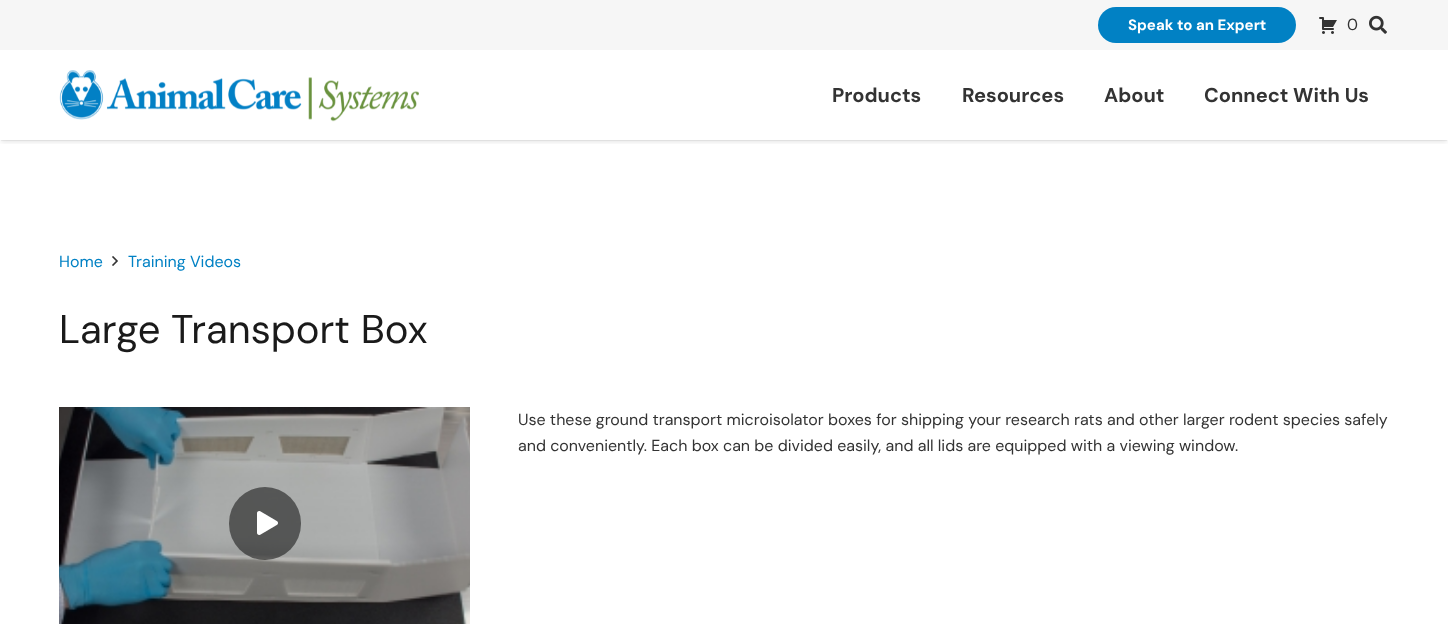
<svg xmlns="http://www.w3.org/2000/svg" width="1448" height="624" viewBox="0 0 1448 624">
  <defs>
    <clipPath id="clip1"><rect x="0" y="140" width="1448" height="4"/></clipPath>
    <filter id="blur1" x="-50%" y="-200%" width="200%" height="500%"><feGaussianBlur stdDeviation="2.5"/></filter>
    <clipPath id="clip2"><rect x="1" y="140" width="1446" height="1"/></clipPath>
    <filter id="blur2" x="-50%" y="-200%" width="200%" height="500%"><feGaussianBlur stdDeviation="0.5"/></filter>
  </defs>
  <rect width="100%" height="100%" fill="#ffffff"/>
  <g clip-path="url(#clip1)">
    <rect x="1" y="54" width="1446" height="88" fill="#000000" fill-opacity="0.1" filter="url(#blur1)"/>
  </g>
  <rect x="0" y="0" width="1448" height="50" fill="#f6f6f6"/>
  <rect x="1098" y="7" width="198" height="36" rx="18" fill="#0181c4"/>
  <text x="1128" y="30" font-family="DM Sans" font-size="15" font-weight="bold" fill="#ffffff">Speak to an Expert</text>
  <image x="1319" y="17" width="18" height="17" href="img1.png"/>
  <text x="1347" y="30" font-family="DM Sans" font-size="16" fill="#333333">0</text>
  <image x="1369" y="15" width="18" height="19" href="img2.png"/>
  <g clip-path="url(#clip2)">
    <rect x="1" y="53" width="1446" height="88" fill="#000000" fill-opacity="0.05" filter="url(#blur2)"/>
  </g>
  <image x="59" y="70" width="360" height="52" href="img3.png"/>
  <text x="832" y="102" font-family="DM Sans" font-size="20" font-weight="bold" fill="#333333">Products</text>
  <text x="962" y="102" font-family="DM Sans" font-size="20" font-weight="bold" fill="#333333">Resources</text>
  <text x="1104" y="102" font-family="DM Sans" font-size="20" font-weight="bold" fill="#333333">About</text>
  <text x="1204" y="102" font-family="DM Sans" font-size="20" font-weight="bold" fill="#333333">Connect With Us</text>
  <text x="59" y="267" font-family="DM Sans" font-size="16" fill="#0181c4">Home</text>
  <image x="112" y="256" width="6" height="10" href="img4.png"/>
  <text x="128" y="267" font-family="DM Sans" font-size="16" fill="#0181c4">Training Videos</text>
  <text x="59" y="343" font-family="DM Sans" font-size="40" fill="#1a1a1a">Large Transport Box</text>
  <image x="59" y="407" width="411" height="217" href="img5.png"/>
  <rect x="229" y="487" width="72" height="73" rx="36" fill="#000000" fill-opacity="0.5"/>
  <image x="257" y="511" width="21" height="24" href="img6.png"/>
  <text x="518" y="425" font-family="DM Sans" font-size="16" fill="#333333">Use these ground transport microisolator boxes for shipping your research rats and other larger rodent species safely</text>
  <text x="518" y="451" font-family="DM Sans" font-size="16" fill="#333333">and conveniently. Each box can be divided easily, and all lids are equipped with a viewing window.</text>
</svg>
